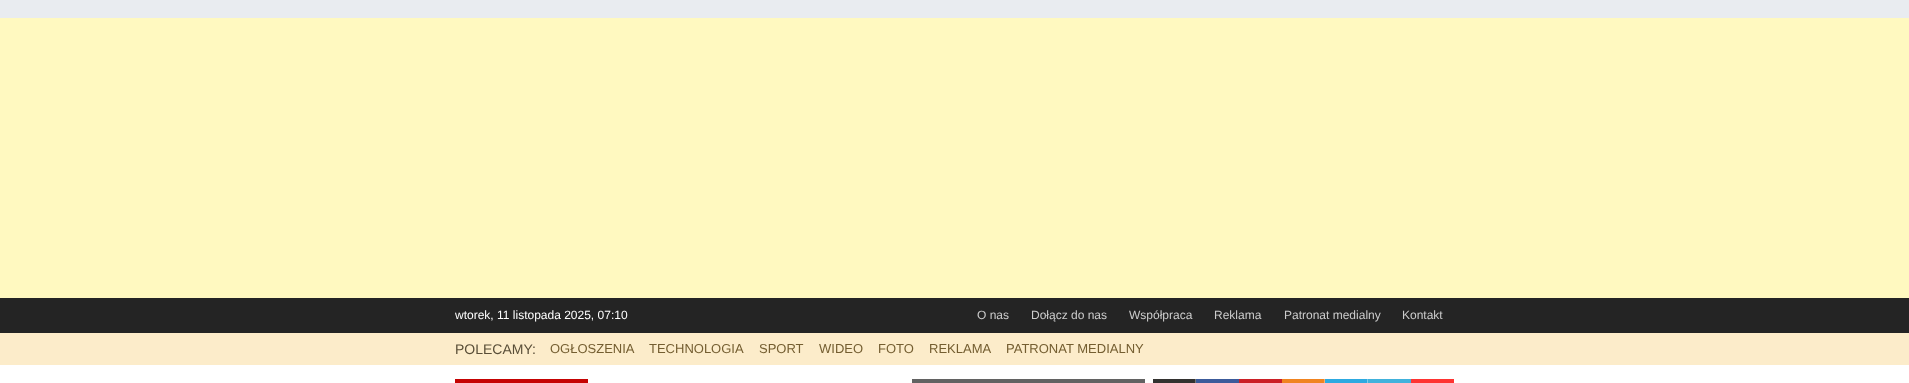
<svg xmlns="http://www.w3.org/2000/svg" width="1909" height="383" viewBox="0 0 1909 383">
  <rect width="100%" height="100%" fill="#e9ecf0"/>
  <rect x="0" y="18" width="1909" height="280" fill="#fff9c0"/>
  <rect x="0" y="365" width="1909" height="18" fill="#ffffff"/>
  <rect x="0" y="298" width="1909" height="35" fill="#242424"/>
  <text x="455" y="319" font-family="Liberation Sans" font-size="12" fill="#ffffff">wtorek, 11 listopada 2025, 07:10</text>
  <text x="977" y="319" font-family="Liberation Sans" font-size="12" fill="#cccccc">O nas</text>
  <text x="1031" y="319" font-family="Liberation Sans" font-size="12" fill="#cccccc">Dołącz do nas</text>
  <text x="1129" y="319" font-family="Liberation Sans" font-size="12" fill="#cccccc">Współpraca</text>
  <text x="1214" y="319" font-family="Liberation Sans" font-size="12" fill="#cccccc">Reklama</text>
  <text x="1284" y="319" font-family="Liberation Sans" font-size="12" fill="#cccccc">Patronat medialny</text>
  <text x="1402" y="319" font-family="Liberation Sans" font-size="12" fill="#cccccc">Kontakt</text>
  <rect x="0" y="333" width="1909" height="32" fill="#fcecca"/>
  <text x="455" y="354" font-family="Liberation Sans" font-size="14" fill="#594e38">POLECAMY:</text>
  <text x="550" y="353" font-family="Liberation Sans" font-size="13" fill="#745e31">OGŁOSZENIA</text>
  <text x="649" y="353" font-family="Liberation Sans" font-size="13" fill="#745e31">TECHNOLOGIA</text>
  <text x="759" y="353" font-family="Liberation Sans" font-size="13" fill="#745e31">SPORT</text>
  <text x="819" y="353" font-family="Liberation Sans" font-size="13" fill="#745e31">WIDEO</text>
  <text x="878" y="353" font-family="Liberation Sans" font-size="13" fill="#745e31">FOTO</text>
  <text x="929" y="353" font-family="Liberation Sans" font-size="13" fill="#745e31">REKLAMA</text>
  <text x="1006" y="353" font-family="Liberation Sans" font-size="13" fill="#745e31">PATRONAT MEDIALNY</text>
  <rect x="455" y="379" width="133" height="4" fill="#c50303"/>
  <rect x="912" y="379" width="233" height="4" fill="#626262"/>
  <image x="1153" y="379" width="43" height="4" href="img1.png"/>
  <rect x="1196" y="379" width="43" height="4" fill="#3c5b9b"/>
  <rect x="1239" y="379" width="43" height="4" fill="#cb2027"/>
  <image x="1282" y="379" width="43" height="4" href="img2.png"/>
  <image x="1325" y="379" width="43" height="4" href="img3.png"/>
  <rect x="1368" y="379" width="43" height="4" fill="#41b2dc"/>
  <rect x="1411" y="379" width="43" height="4" fill="#fe3432"/>
</svg>
